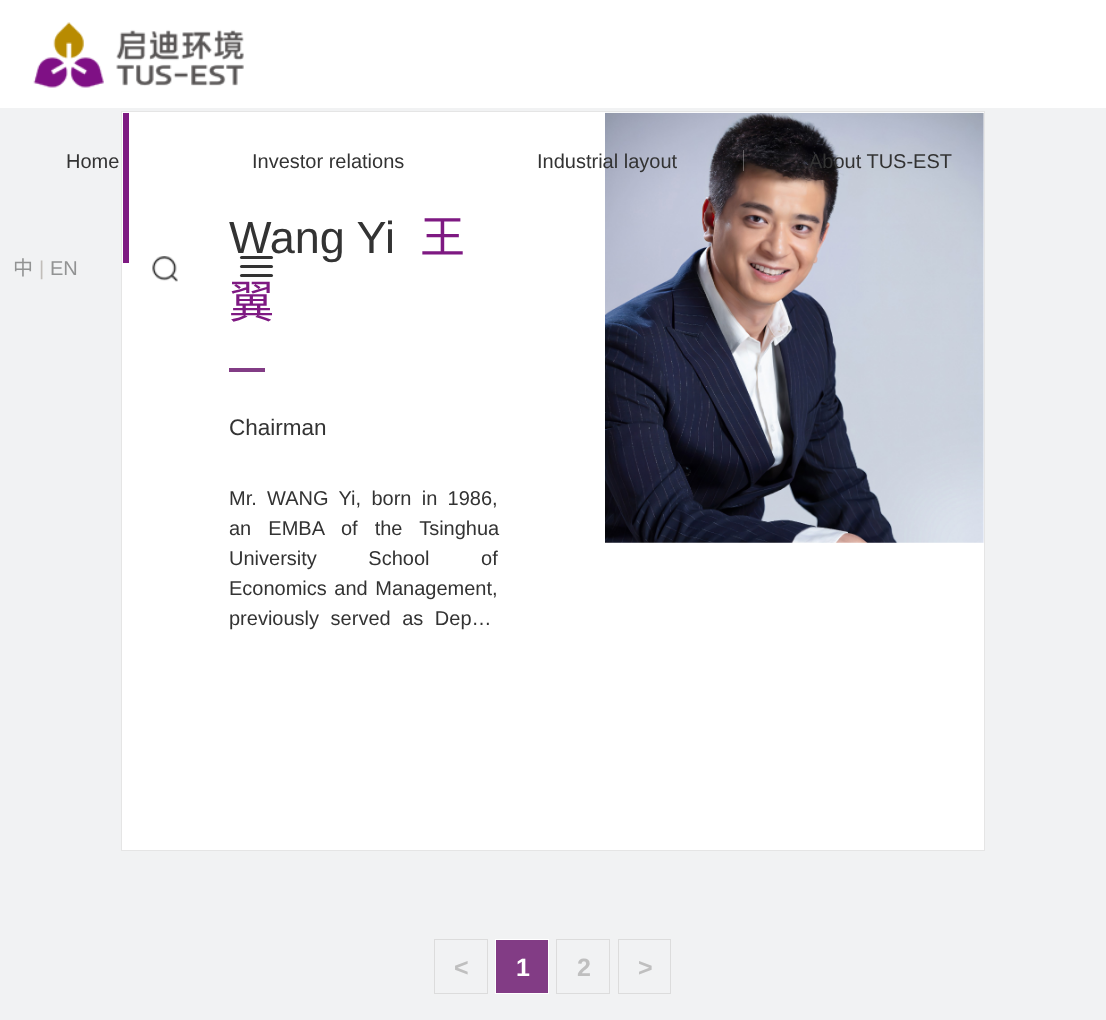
<svg xmlns="http://www.w3.org/2000/svg" width="1106" height="1020" viewBox="0 0 1106 1020">
  <rect width="100%" height="100%" fill="#f1f2f3"/>
  <rect x="0" y="0" width="1106" height="108" fill="#ffffff"/>
  <image x="33" y="22" width="211" height="66" href="img1.png"/>
  <text x="66" y="168" font-family="Liberation Sans" font-size="20" fill="#333333">Home</text>
  <rect x="121.5" y="111.5" width="863" height="739" fill="#ffffff" stroke="#e5e5e5"/>
  <text x="252" y="168" font-family="Liberation Sans" font-size="20" fill="#333333">Investor relations</text>
  <image x="605" y="112" width="379" height="431" href="img3.png"/>
  <text x="537" y="168" font-family="Liberation Sans" font-size="20" fill="#333333">Industrial layout</text>
  <rect x="743" y="150" width="1" height="21" fill="#ffffff" fill-opacity="0.3"/>
  <text x="809" y="168" font-family="Liberation Sans" font-size="20" fill="#333333">About TUS-EST</text>
  <text x="13" y="275" font-family="Noto Sans CJK SC" font-size="20" fill="#929393">中</text>
  <text x="39" y="275" font-family="Liberation Sans" font-size="20" fill="#c1bdb9">|</text>
  <text x="50" y="275" font-family="Liberation Sans" font-size="20" fill="#929393">EN</text>
  <image x="152" y="256" width="26" height="26" href="img2.png"/>
  <rect x="240" y="265" width="33" height="3" rx="1.5" fill="#333333"/>
  <rect x="240" y="256" width="33" height="3" rx="1.5" fill="#333333"/>
  <rect x="240" y="274" width="33" height="3" rx="1.5" fill="#333333"/>
  <rect x="123" y="113" width="6" height="150" fill="#7e1a82"/>
  <text x="229" y="253" font-family="Liberation Sans" font-size="45" fill="#333333">Wang Yi</text>
  <text x="420" y="253" font-family="Noto Sans CJK SC" font-size="45" fill="#7e1982">王</text>
  <text x="229" y="318" font-family="Noto Sans CJK SC" font-size="45" fill="#7e1982">翼</text>
  <rect x="229" y="368" width="36" height="4" fill="#823c85"/>
  <text x="229" y="435" font-family="Liberation Sans" font-size="22.5" fill="#333333">Chairman</text>
  <text x="229" y="505" word-spacing="4.75" font-family="Liberation Sans" font-size="20" fill="#333333">Mr. WANG Yi, born in 1986,</text>
  <text x="229" y="535" word-spacing="11.5" font-family="Liberation Sans" font-size="20" fill="#333333">an EMBA of the Tsinghua</text>
  <text x="229" y="565" word-spacing="46" font-family="Liberation Sans" font-size="20" fill="#333333">University School of</text>
  <text x="229" y="595" word-spacing="2" font-family="Liberation Sans" font-size="20" fill="#333333">Economics and Management,</text>
  <text x="229" y="625" word-spacing="6" font-family="Liberation Sans" font-size="20" fill="#333333">previously served as Dep…</text>
  <rect x="434.5" y="939.5" width="53" height="54" fill="none" stroke="#dcdcdc"/>
  <text x="454" y="976" font-family="Liberation Sans" font-size="25" font-weight="bold" fill="#bfbfbf">&lt;</text>
  <rect x="495.5" y="939.5" width="53" height="54" fill="#823c85" stroke="#ffffff"/>
  <text x="516" y="976" font-family="Liberation Sans" font-size="25" font-weight="bold" fill="#ffffff">1</text>
  <rect x="556.5" y="939.5" width="53" height="54" fill="none" stroke="#dcdcdc"/>
  <text x="577" y="976" font-family="Liberation Sans" font-size="25" font-weight="bold" fill="#bfbfbf">2</text>
  <rect x="618.5" y="939.5" width="52" height="54" fill="none" stroke="#dcdcdc"/>
  <text x="638" y="976" font-family="Liberation Sans" font-size="25" font-weight="bold" fill="#bfbfbf">&gt;</text>
</svg>
